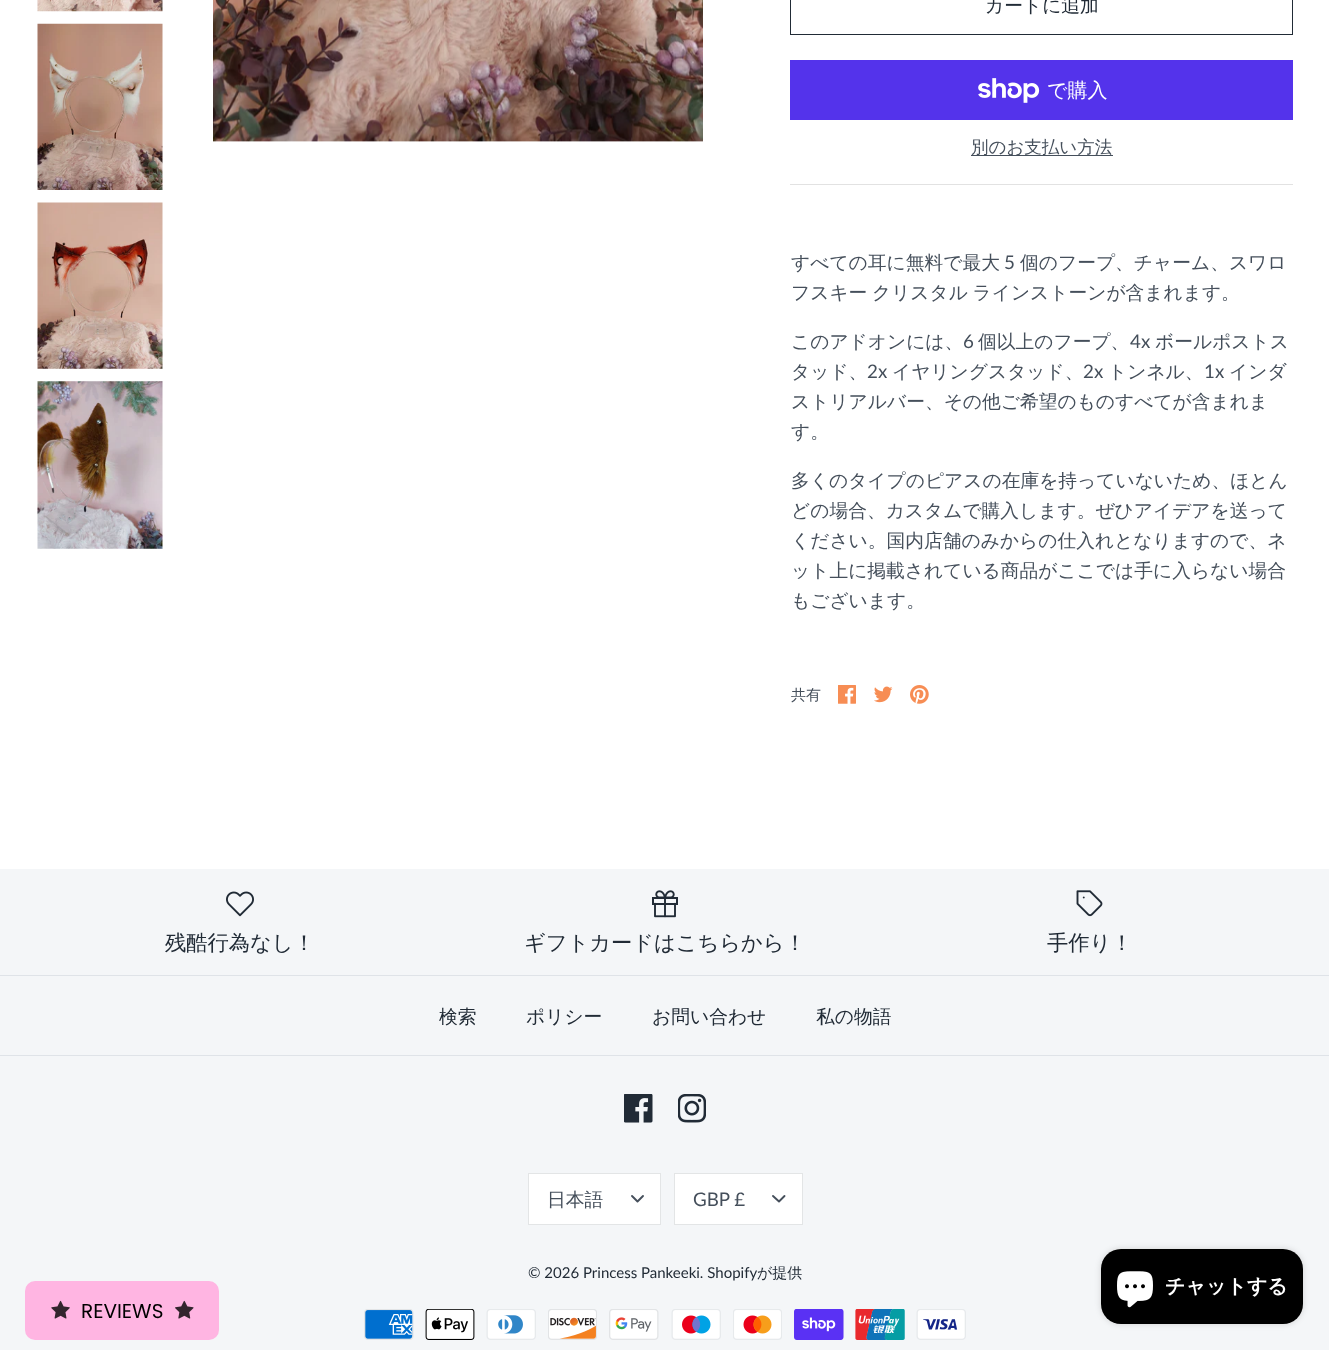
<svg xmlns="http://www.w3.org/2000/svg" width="1329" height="1350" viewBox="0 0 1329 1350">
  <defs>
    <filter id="blur1" x="-50%" y="-200%" width="200%" height="500%"><feGaussianBlur stdDeviation="3"/></filter>
  </defs>
  <rect width="100%" height="100%" fill="#ffffff"/>
  <image x="37" y="0" width="126" height="12" href="img1.png"/>
  <image x="37" y="23" width="126" height="167" href="img2.png"/>
  <image x="37" y="202" width="126" height="167" href="img3.png"/>
  <image x="37" y="381" width="126" height="168" href="img4.png"/>
  <image x="213" y="0" width="490" height="142" href="img5.png"/>
  <rect x="790" y="184" width="503" height="1" fill="#e2e2e2"/>
  <rect x="790.5" y="-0.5" width="502" height="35" fill="none" stroke="#212b36"/>
  <text x="985" y="12" font-family="WenQuanYi Zen Hei" font-size="18.75" font-weight="500" fill="#212b36">カートに追加</text>
  <rect x="790" y="60" width="503" height="60" fill="#5433eb"/>
  <image x="978" y="78" width="62" height="25" href="img6.png"/>
  <text x="1047" y="97" font-family="WenQuanYi Zen Hei" font-size="20" font-weight="500" fill="#ffffff">で購入</text>
  <rect x="971" y="155" width="142" height="1" fill="#454f5b"/>
  <text x="971" y="153" font-family="WenQuanYi Zen Hei" font-size="17.5" font-weight="500" fill="#454f5b">別のお支払い方法</text>
  <text x="791" y="269" font-family="WenQuanYi Zen Hei" font-size="18.75" font-weight="500" fill="#454f5b">すべての耳に無料で最大</text>
  <text x="1004" y="269" font-family="Lato" font-size="18.75" fill="#454f5b">5</text>
  <text x="1020" y="269" font-family="WenQuanYi Zen Hei" font-size="18.75" font-weight="500" fill="#454f5b">個のフープ、チャーム、スワロ</text>
  <text x="791" y="299" word-spacing="-1" font-family="WenQuanYi Zen Hei" font-size="18.75" font-weight="500" fill="#454f5b">フスキー クリスタル ラインストーンが含まれます。</text>
  <text x="791" y="348" font-family="WenQuanYi Zen Hei" font-size="18.75" font-weight="500" fill="#454f5b">このアドオンには、</text>
  <text x="963" y="348" font-family="Lato" font-size="18.75" fill="#454f5b">6</text>
  <text x="978" y="348" font-family="WenQuanYi Zen Hei" font-size="18.75" font-weight="500" fill="#454f5b">個以上のフープ、</text>
  <text x="1130" y="348" font-family="Lato" font-size="18.75" fill="#454f5b">4x</text>
  <text x="1155" y="348" font-family="WenQuanYi Zen Hei" font-size="18.75" font-weight="500" fill="#454f5b">ボールポストス</text>
  <text x="791" y="378" font-family="WenQuanYi Zen Hei" font-size="18.75" font-weight="500" fill="#454f5b">タッド、</text>
  <text x="867" y="378" font-family="Lato" font-size="18.75" fill="#454f5b">2x</text>
  <text x="892" y="378" font-family="WenQuanYi Zen Hei" font-size="18.75" font-weight="500" fill="#454f5b">イヤリングスタッド、</text>
  <text x="1083" y="378" font-family="Lato" font-size="18.75" fill="#454f5b">2x</text>
  <text x="1108" y="378" font-family="WenQuanYi Zen Hei" font-size="18.75" font-weight="500" fill="#454f5b">トンネル、</text>
  <text x="1204" y="378" font-family="Lato" font-size="18.75" fill="#454f5b">1x</text>
  <text x="1229" y="378" font-family="WenQuanYi Zen Hei" font-size="18.75" font-weight="500" fill="#454f5b">インダ</text>
  <text x="791" y="408" font-family="WenQuanYi Zen Hei" font-size="18.75" font-weight="500" fill="#454f5b">ストリアルバー、その他ご希望のものすべてが含まれま</text>
  <text x="791" y="438" font-family="WenQuanYi Zen Hei" font-size="18.75" font-weight="500" fill="#454f5b">す。</text>
  <text x="791" y="487" font-family="WenQuanYi Zen Hei" font-size="18.75" font-weight="500" fill="#454f5b">多くのタイプのピアスの在庫を持っていないため、ほとん</text>
  <text x="791" y="517" font-family="WenQuanYi Zen Hei" font-size="18.75" font-weight="500" fill="#454f5b">どの場合、カスタムで購入します。ぜひアイデアを送って</text>
  <text x="791" y="547" font-family="WenQuanYi Zen Hei" font-size="18.75" font-weight="500" fill="#454f5b">ください。国内店舗のみからの仕入れとなりますので、ネ</text>
  <text x="791" y="577" font-family="WenQuanYi Zen Hei" font-size="18.75" font-weight="500" fill="#454f5b">ット上に掲載されている商品がここでは手に入らない場合</text>
  <text x="791" y="607" font-family="WenQuanYi Zen Hei" font-size="18.75" font-weight="500" fill="#454f5b">もございます。</text>
  <text x="791" y="700" font-family="WenQuanYi Zen Hei" font-size="15" font-weight="500" fill="#454f5b">共有</text>
  <image x="838" y="685" width="18" height="19" href="img7.png"/>
  <image x="874" y="686" width="19" height="17" href="img8.png"/>
  <image x="910" y="685" width="19" height="19" href="img9.png"/>
  <rect x="0" y="869" width="1329" height="481" fill="#f4f6f8"/>
  <image x="226" y="891" width="28" height="26" href="img10.png"/>
  <text x="165" y="950" font-family="WenQuanYi Zen Hei" font-size="21.25" font-weight="500" fill="#212b36">残酷行為なし！</text>
  <image x="652" y="890" width="26" height="28" href="img11.png"/>
  <text x="524" y="950" font-family="WenQuanYi Zen Hei" font-size="21.25" font-weight="500" fill="#212b36">ギフトカードはこちらから！</text>
  <image x="1076" y="890" width="27" height="27" href="img12.png"/>
  <text x="1047" y="950" font-family="WenQuanYi Zen Hei" font-size="21.25" font-weight="500" fill="#212b36">手作り！</text>
  <rect x="0" y="975" width="1329" height="1" fill="#dfe3e8"/>
  <rect x="0" y="1055" width="1329" height="1" fill="#dfe3e8"/>
  <text x="439" y="1023" font-family="WenQuanYi Zen Hei" font-size="18.75" font-weight="500" fill="#212b36">検索</text>
  <text x="526" y="1023" font-family="WenQuanYi Zen Hei" font-size="18.75" font-weight="500" fill="#212b36">ポリシー</text>
  <text x="652" y="1023" font-family="WenQuanYi Zen Hei" font-size="18.75" font-weight="500" fill="#212b36">お問い合わせ</text>
  <text x="816" y="1023" font-family="WenQuanYi Zen Hei" font-size="18.75" font-weight="500" fill="#212b36">私の物語</text>
  <image x="624" y="1094" width="29" height="29" href="img13.png"/>
  <image x="678" y="1094" width="28" height="29" href="img14.png"/>
  <rect x="528.5" y="1173.5" width="132" height="51" fill="#ffffff" stroke="#e3e5e6"/>
  <text x="547" y="1206" font-family="WenQuanYi Zen Hei" font-size="18.75" font-weight="500" fill="#454f5b">日本語</text>
  <path d="M632 1196L637.5 1201.5L643 1196" fill="none" stroke="#454f5b" stroke-width="1.9" stroke-linecap="round" stroke-linejoin="round"/>
  <rect x="674.5" y="1173.5" width="128" height="51" fill="#ffffff" stroke="#e3e5e6"/>
  <text x="693" y="1206" font-family="Lato" font-size="18.75" fill="#454f5b">GBP £</text>
  <path d="M773 1196L779 1201.5L784.5 1196" fill="none" stroke="#454f5b" stroke-width="1.9" stroke-linecap="round" stroke-linejoin="round"/>
  <text x="528" y="1278" font-family="Lato" font-size="15" fill="#212b36">© 2026 Princess Pankeeki. Shopify</text>
  <text x="757" y="1278" font-family="WenQuanYi Zen Hei" font-size="15" font-weight="500" fill="#212b36">が提供</text>
  <image x="364" y="1309" width="50" height="31" href="img15.png"/>
  <image x="425" y="1309" width="50" height="31" href="img16.png"/>
  <image x="486" y="1309" width="50" height="31" href="img17.png"/>
  <image x="548" y="1309" width="49" height="31" href="img18.png"/>
  <image x="609" y="1309" width="50" height="31" href="img19.png"/>
  <image x="671" y="1309" width="50" height="31" href="img20.png"/>
  <image x="733" y="1309" width="49" height="31" href="img21.png"/>
  <image x="794" y="1309" width="50" height="31" href="img22.png"/>
  <image x="855" y="1309" width="50" height="31" href="img23.png"/>
  <image x="916" y="1309" width="50" height="31" href="img24.png"/>
  <rect x="1101" y="1249" width="202" height="75" rx="20" fill="#000000" fill-opacity="0.15" filter="url(#blur1)"/>
  <rect x="1101" y="1249" width="202" height="75" rx="20" fill="#000000"/>
  <image x="1117" y="1271" width="36" height="37" href="img25.png"/>
  <text x="1165" y="1293" font-family="WenQuanYi Zen Hei" font-size="20" font-weight="bold" fill="#ffffff">チャットする</text>
  <rect x="25" y="1281" width="194" height="59" rx="10" fill="#ffb5e2"/>
  <image x="51" y="1300" width="19" height="19" href="img26.png"/>
  <text x="81" y="1318" font-family="Poppins" font-size="20" fill="#000000">REVIEWS</text>
  <image x="175" y="1300" width="19" height="19" href="img27.png"/>
</svg>
